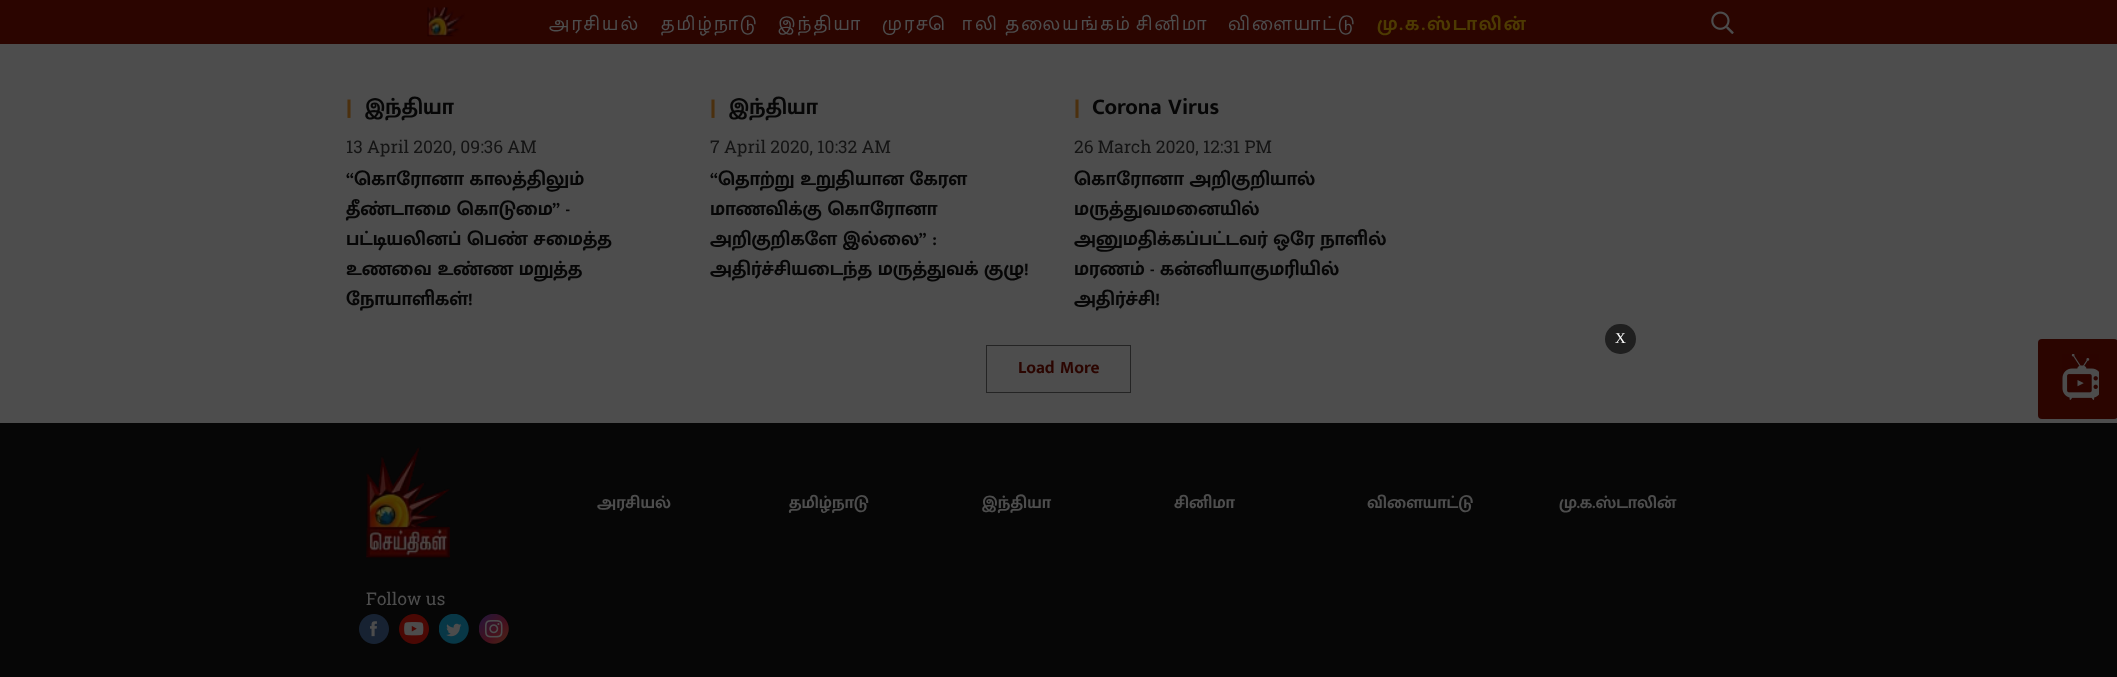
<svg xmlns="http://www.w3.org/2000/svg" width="2117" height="677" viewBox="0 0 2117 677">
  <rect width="100%" height="100%" fill="#4d4d4d"/>
  <rect x="0" y="0" width="2117" height="44" fill="#2b0500"/>
  <image x="427" y="7" width="38" height="30" href="img1.png"/>
  <text x="549" y="30" font-family="Mukta Malar" font-size="20" letter-spacing="2.1" fill="#4d4d4d">அரசியல்</text>
  <text x="661" y="30" font-family="Mukta Malar" font-size="20" letter-spacing="2.1" fill="#4d4d4d">தமிழ்நாடு</text>
  <text x="778" y="30" font-family="Mukta Malar" font-size="20" letter-spacing="2.1" fill="#4d4d4d">இந்தியா</text>
  <text x="882" y="30" word-spacing="-1" font-family="Mukta Malar" font-size="20" letter-spacing="2.1" fill="#4d4d4d">முரசொலி தலையங்கம்</text>
  <text x="1136" y="30" font-family="Mukta Malar" font-size="20" letter-spacing="2.1" fill="#4d4d4d">சினிமா</text>
  <text x="1228" y="30" font-family="Mukta Malar" font-size="20" letter-spacing="2.1" fill="#4d4d4d">விளையாட்டு</text>
  <text x="1377" y="30" font-family="Mukta Malar" font-size="20" font-weight="bold" letter-spacing="2.1" fill="#4d3a02">மு.க.ஸ்டாலின்</text>
  <image x="1711" y="11" width="23" height="23" href="img2.png"/>
  <text x="346" y="115" font-family="Mukta Malar" font-size="25" font-weight="bold" fill="#4b300e">|</text>
  <text x="365" y="114" font-family="Mukta Malar" font-size="22.5" font-weight="bold" fill="#060606">இந்தியா</text>
  <text x="346" y="153" font-family="Roboto Slab" font-size="17.5" fill="#141414">13 April 2020, 09:36 AM</text>
  <text x="346" y="185" font-family="Mukta Malar" font-size="20" font-weight="bold" fill="#060606">“கொரோனா காலத்திலும்</text>
  <text x="346" y="215" font-family="Mukta Malar" font-size="20" font-weight="bold" fill="#060606">தீண்டாமை கொடுமை” -</text>
  <text x="346" y="245" font-family="Mukta Malar" font-size="20" font-weight="bold" fill="#060606">பட்டியலினப் பெண் சமைத்த</text>
  <text x="346" y="275" font-family="Mukta Malar" font-size="20" font-weight="bold" fill="#060606">உணவை உண்ண மறுத்த</text>
  <text x="346" y="305" font-family="Mukta Malar" font-size="20" font-weight="bold" fill="#060606">நோயாளிகள்!</text>
  <text x="710" y="115" font-family="Mukta Malar" font-size="25" font-weight="bold" fill="#4b300e">|</text>
  <text x="729" y="114" font-family="Mukta Malar" font-size="22.5" font-weight="bold" fill="#060606">இந்தியா</text>
  <text x="710" y="153" font-family="Roboto Slab" font-size="17.5" fill="#141414">7 April 2020, 10:32 AM</text>
  <text x="710" y="185" font-family="Mukta Malar" font-size="20" font-weight="bold" fill="#060606">“தொற்று உறுதியான கேரள</text>
  <text x="710" y="215" font-family="Mukta Malar" font-size="20" font-weight="bold" fill="#060606">மாணவிக்கு கொரோனா</text>
  <text x="710" y="245" font-family="Mukta Malar" font-size="20" font-weight="bold" fill="#060606">அறிகுறிகளே இல்லை” :</text>
  <text x="710" y="275" font-family="Mukta Malar" font-size="20" font-weight="bold" fill="#060606">அதிர்ச்சியடைந்த மருத்துவக் குழு!</text>
  <text x="1074" y="115" font-family="Mukta Malar" font-size="25" font-weight="bold" fill="#4b300e">|</text>
  <text x="1092" y="114" font-family="Mukta Malar" font-size="22.5" font-weight="bold" fill="#060606">Corona Virus</text>
  <text x="1074" y="153" font-family="Roboto Slab" font-size="17.5" fill="#141414">26 March 2020, 12:31 PM</text>
  <text x="1074" y="185" font-family="Mukta Malar" font-size="20" font-weight="bold" fill="#060606">கொரோனா அறிகுறியால்</text>
  <text x="1074" y="215" font-family="Mukta Malar" font-size="20" font-weight="bold" fill="#060606">மருத்துவமனையில்</text>
  <text x="1074" y="245" font-family="Mukta Malar" font-size="20" font-weight="bold" fill="#060606">அனுமதிக்கப்பட்டவர் ஒரே நாளில்</text>
  <text x="1074" y="275" font-family="Mukta Malar" font-size="20" font-weight="bold" fill="#060606">மரணம் - கன்னியாகுமரியில்</text>
  <text x="1074" y="305" font-family="Mukta Malar" font-size="20" font-weight="bold" fill="#060606">அதிர்ச்சி!</text>
  <rect x="986.5" y="345.5" width="144" height="47" fill="none" stroke="#242424"/>
  <text x="1018" y="373" font-family="Mukta Malar" font-size="17.5" font-weight="bold" fill="#2b0500">Load More</text>
  <rect x="2038" y="339" width="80" height="80" rx="4" fill="#2b0500"/>
  <image x="2062" y="354" width="37" height="46" href="img3.png"/>
  <rect x="0" y="423" width="2117" height="254" fill="#060606"/>
  <text x="597" y="508" font-family="Mukta Malar" font-size="17.5" font-weight="bold" fill="#4d4d4d">அரசியல்</text>
  <text x="789" y="508" font-family="Mukta Malar" font-size="17.5" font-weight="bold" fill="#4d4d4d">தமிழ்நாடு</text>
  <text x="982" y="508" font-family="Mukta Malar" font-size="17.5" font-weight="bold" fill="#4d4d4d">இந்தியா</text>
  <text x="1174" y="508" font-family="Mukta Malar" font-size="17.5" font-weight="bold" fill="#4d4d4d">சினிமா</text>
  <text x="1367" y="508" font-family="Mukta Malar" font-size="17.5" font-weight="bold" fill="#4d4d4d">விளையாட்டு</text>
  <text x="1559" y="508" font-family="Mukta Malar" font-size="17.5" font-weight="bold" fill="#4d4d4d">மு.க.ஸ்டாலின்</text>
  <image x="366" y="447" width="84" height="112" href="img4.png"/>
  <text x="366" y="605" font-family="Roboto Slab" font-size="17.5" fill="#4d4d4d">Follow us</text>
  <image x="359" y="614" width="30" height="30" href="img5.png"/>
  <image x="399" y="614" width="30" height="30" href="img6.png"/>
  <image x="439" y="614" width="30" height="30" href="img7.png"/>
  <image x="479" y="614" width="30" height="30" href="img8.png"/>
  <rect x="1605" y="324" width="31" height="30" rx="15" fill="#1f1f1f"/>
  <text x="1615" y="343" font-family="Liberation Serif" font-size="15" fill="#ffffff">X</text>
</svg>
